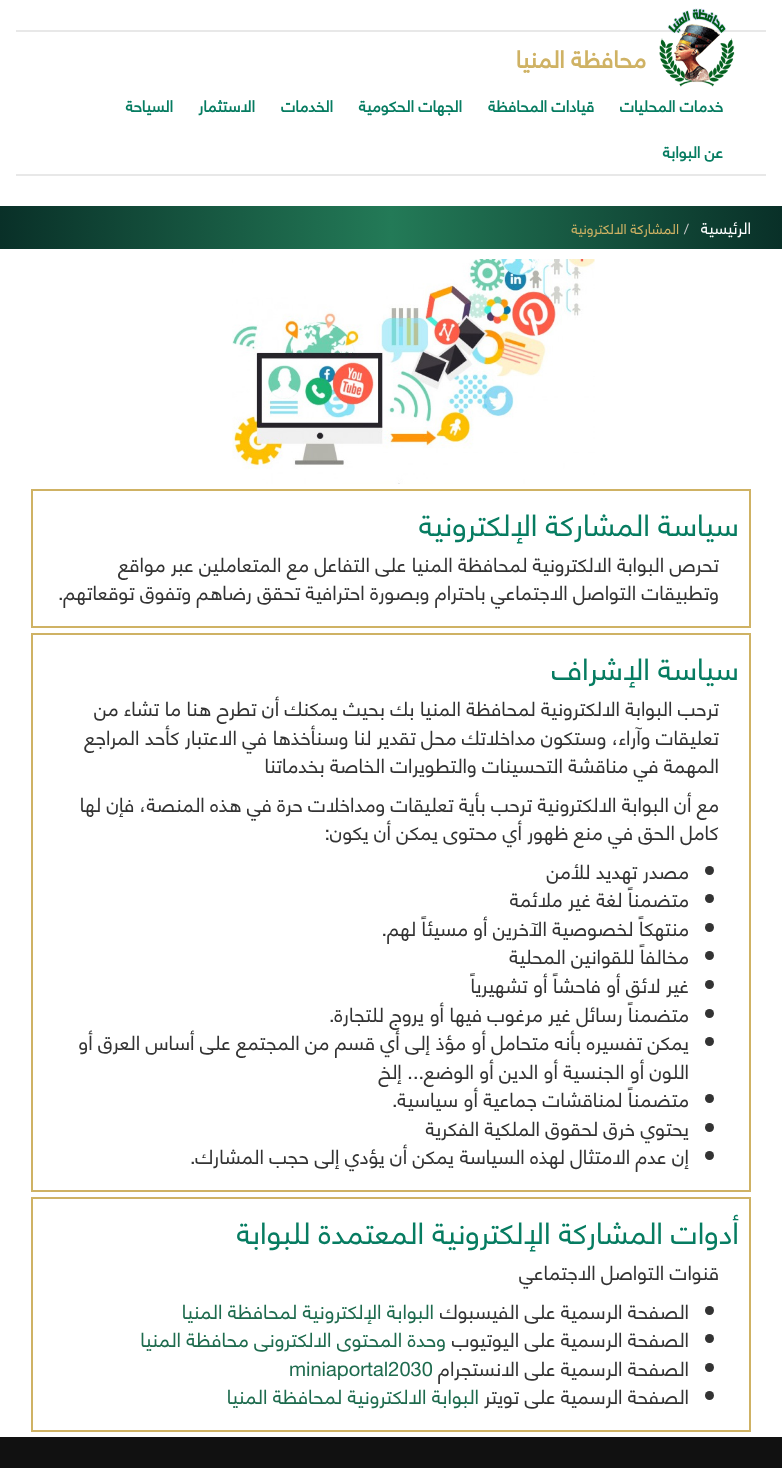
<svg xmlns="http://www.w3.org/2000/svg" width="782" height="1468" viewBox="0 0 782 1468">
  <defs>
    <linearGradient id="g1" gradientUnits="userSpaceOnUse" x1="0" y1="228" x2="782" y2="227"><stop offset="0" stop-color="#093028"/><stop offset="0.5" stop-color="#237a57"/><stop offset="1" stop-color="#093028"/></linearGradient>
  </defs>
  <rect width="100%" height="100%" fill="#ffffff"/>
  <rect x="16" y="30" width="750" height="2" fill="#e8e8e8"/>
  <rect x="16" y="174" width="750" height="2" fill="#e8e8e8"/>
  <image x="659" y="8" width="76" height="79" href="img1.png"/>
  <text x="646" y="68" font-family="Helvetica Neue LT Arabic" font-size="24" font-weight="bold" direction="rtl" fill="#cfb264">محافظة المنيا</text>
  <text x="723" y="112" font-family="Helvetica Neue LT Arabic" font-size="16" font-weight="bold" direction="rtl" fill="#067c61">خدمات المحليات</text>
  <text x="594" y="112" font-family="Helvetica Neue LT Arabic" font-size="16" font-weight="bold" direction="rtl" fill="#067c61">قيادات المحافظة</text>
  <text x="462" y="112" font-family="Helvetica Neue LT Arabic" font-size="16" font-weight="bold" direction="rtl" fill="#067c61">الجهات الحكومية</text>
  <text x="333" y="112" font-family="Helvetica Neue LT Arabic" font-size="16" font-weight="bold" direction="rtl" fill="#067c61">الخدمات</text>
  <text x="255" y="112" font-family="Helvetica Neue LT Arabic" font-size="16" font-weight="bold" direction="rtl" fill="#067c61">الاستثمار</text>
  <text x="173" y="112" font-family="Helvetica Neue LT Arabic" font-size="16" font-weight="bold" direction="rtl" fill="#067c61">السياحة</text>
  <text x="723" y="158" font-family="Helvetica Neue LT Arabic" font-size="16" font-weight="bold" direction="rtl" fill="#067c61">عن البوابة</text>
  <rect x="0" y="206" width="782" height="43" fill="url(#g1)"/>
  <text x="751" y="234" font-family="Helvetica Neue LT Arabic" font-size="16" direction="rtl" fill="#ffffff">الرئيسية</text>
  <text x="684" y="234" font-family="Helvetica Neue LT Arabic" font-size="14" fill="#cccccc">/</text>
  <text x="679" y="234" font-family="Helvetica Neue LT Arabic" font-size="14" direction="rtl" fill="#cfb264">المشاركة الالكترونية</text>
  <image x="232" y="259" width="363" height="225" href="img2.png"/>
  <rect x="32" y="490" width="718" height="137" fill="none" stroke="#cfb264" stroke-width="2"/>
  <text x="739" y="536" font-family="Helvetica Neue LT Arabic" font-size="30" direction="rtl" fill="#067c61">سياسة المشاركة الإلكترونية</text>
  <text x="719" y="572" font-family="Helvetica Neue LT Arabic" font-size="20" direction="rtl" fill="#333333">تحرص البوابة الالكترونية لمحافظة المنيا على التفاعل مع المتعاملين عبر مواقع</text>
  <text x="719" y="600" font-family="Helvetica Neue LT Arabic" font-size="20" direction="rtl" fill="#333333">وتطبيقات التواصل الاجتماعي باحترام وبصورة احترافية تحقق رضاهم وتفوق توقعاتهم.</text>
  <rect x="32" y="634" width="718" height="557" fill="none" stroke="#cfb264" stroke-width="2"/>
  <text x="739" y="680" font-family="Helvetica Neue LT Arabic" font-size="30" direction="rtl" fill="#067c61">سياسة الإشراف</text>
  <text x="719" y="716" font-family="Helvetica Neue LT Arabic" font-size="20" direction="rtl" fill="#333333">ترحب البوابة الالكترونية لمحافظة المنيا بك بحيث يمكنك أن تطرح هنا ما تشاء من</text>
  <text x="719" y="745" font-family="Helvetica Neue LT Arabic" font-size="20" direction="rtl" fill="#333333">تعليقات وآراء، وستكون مداخلاتك محل تقدير لنا وسنأخذها في الاعتبار كأحد المراجع</text>
  <text x="719" y="773" font-family="Helvetica Neue LT Arabic" font-size="20" direction="rtl" fill="#333333">المهمة في مناقشة التحسينات والتطويرات الخاصة بخدماتنا</text>
  <text x="719" y="812" font-family="Helvetica Neue LT Arabic" font-size="20" direction="rtl" fill="#333333">مع أن البوابة الالكترونية ترحب بأية تعليقات ومداخلات حرة في هذه المنصة، فإن لها</text>
  <text x="719" y="840" font-family="Helvetica Neue LT Arabic" font-size="20" direction="rtl" fill="#333333">كامل الحق في منع ظهور أي محتوى يمكن أن يكون:</text>
  <circle cx="709.5" cy="870.5" r="4.5" fill="#333333"/>
  <text x="689" y="879" font-family="Helvetica Neue LT Arabic" font-size="20" direction="rtl" fill="#333333">مصدر تهديد للأمن</text>
  <circle cx="709.5" cy="898.5" r="4.5" fill="#333333"/>
  <text x="689" y="907" font-family="Helvetica Neue LT Arabic" font-size="20" direction="rtl" fill="#333333">متضمناً لغة غير ملائمة</text>
  <circle cx="709.5" cy="927.5" r="4.5" fill="#333333"/>
  <text x="689" y="936" font-family="Helvetica Neue LT Arabic" font-size="20" direction="rtl" fill="#333333">منتهكاً لخصوصية الآخرين أو</text>
  <text x="468" y="936" font-family="Helvetica Neue LT Arabic" font-size="20" direction="rtl" fill="#333333">مسيئاً لهم.</text>
  <circle cx="709.5" cy="955.5" r="4.5" fill="#333333"/>
  <text x="689" y="964" font-family="Helvetica Neue LT Arabic" font-size="20" direction="rtl" fill="#333333">مخالفاً للقوانين المحلية</text>
  <circle cx="709.5" cy="984.5" r="4.5" fill="#333333"/>
  <text x="689" y="993" font-family="Helvetica Neue LT Arabic" font-size="20" direction="rtl" fill="#333333">غير لائق أو فاحشاً أو تشهيرياً</text>
  <circle cx="709.5" cy="1013.5" r="4.5" fill="#333333"/>
  <text x="689" y="1022" font-family="Helvetica Neue LT Arabic" font-size="20" direction="rtl" fill="#333333">متضمناً رسائل غير مرغوب فيها أو</text>
  <text x="424" y="1022" font-family="Helvetica Neue LT Arabic" font-size="20" direction="rtl" fill="#333333">يروج للتجارة.</text>
  <circle cx="709.5" cy="1041.5" r="4.5" fill="#333333"/>
  <text x="689" y="1050" font-family="Helvetica Neue LT Arabic" font-size="20" direction="rtl" fill="#333333">يمكن تفسيره بأنه متحامل أو مؤذ</text>
  <text x="430" y="1050" font-family="Helvetica Neue LT Arabic" font-size="20" direction="rtl" fill="#333333">إلى أي قسم من المجتمع على أساس العرق أو</text>
  <text x="689" y="1079" font-family="Helvetica Neue LT Arabic" font-size="20" direction="rtl" fill="#333333">اللون أو الجنسية أو الدين أو</text>
  <text x="474" y="1079" font-family="Helvetica Neue LT Arabic" font-size="20" direction="rtl" fill="#333333">الوضع... إلخ</text>
  <circle cx="709.5" cy="1098.5" r="4.5" fill="#333333"/>
  <text x="689" y="1107" font-family="Helvetica Neue LT Arabic" font-size="20" direction="rtl" fill="#333333">متضمناً لمناقشات جماعية أو</text>
  <text x="458" y="1107" font-family="Helvetica Neue LT Arabic" font-size="20" direction="rtl" fill="#333333">سياسية.</text>
  <circle cx="709.5" cy="1127.5" r="4.5" fill="#333333"/>
  <text x="689" y="1136" font-family="Helvetica Neue LT Arabic" font-size="20" direction="rtl" fill="#333333">يحتوي خرق لحقوق الملكية الفكرية</text>
  <circle cx="709.5" cy="1155.5" r="4.5" fill="#333333"/>
  <text x="689" y="1164" font-family="Helvetica Neue LT Arabic" font-size="20" direction="rtl" fill="#333333">إن عدم الامتثال لهذه السياسة</text>
  <text x="454" y="1164" font-family="Helvetica Neue LT Arabic" font-size="20" direction="rtl" fill="#333333">يمكن أن يؤدي إلى حجب المشارك.</text>
  <rect x="32" y="1198" width="718" height="233" fill="none" stroke="#cfb264" stroke-width="2"/>
  <text x="739" y="1244" font-family="Helvetica Neue LT Arabic" font-size="30" direction="rtl" fill="#067c61">أدوات المشاركة الإلكترونية المعتمدة للبوابة</text>
  <text x="719" y="1280" font-family="Helvetica Neue LT Arabic" font-size="20" direction="rtl" fill="#333333">قنوات التواصل الاجتماعي</text>
  <circle cx="709.5" cy="1310.5" r="4.5" fill="#333333"/>
  <text x="689" y="1319" font-family="Helvetica Neue LT Arabic" font-size="20" direction="rtl" fill="#333333">الصفحة الرسمية على الفيسبوك</text>
  <text x="434" y="1319" font-family="Helvetica Neue LT Arabic" font-size="20" direction="rtl" fill="#1e6b4e">البوابة الإلكترونية لمحافظة المنيا</text>
  <circle cx="709.5" cy="1338.5" r="4.5" fill="#333333"/>
  <text x="689" y="1347" font-family="Helvetica Neue LT Arabic" font-size="20" direction="rtl" fill="#333333">الصفحة الرسمية على اليوتيوب</text>
  <text x="446" y="1347" font-family="Helvetica Neue LT Arabic" font-size="20" direction="rtl" fill="#1e6b4e">وحدة المحتوى الالكترونى محافظة المنيا</text>
  <circle cx="709.5" cy="1367.5" r="4.5" fill="#333333"/>
  <text x="689" y="1376" font-family="Helvetica Neue LT Arabic" font-size="20" direction="rtl" fill="#333333">الصفحة الرسمية على الانستجرام</text>
  <text x="289" y="1376" font-family="Helvetica Neue LT Arabic" font-size="20" fill="#1e6b4e">miniaportal2030</text>
  <circle cx="709.5" cy="1395.5" r="4.5" fill="#333333"/>
  <text x="689" y="1404" font-family="Helvetica Neue LT Arabic" font-size="20" direction="rtl" fill="#333333">الصفحة الرسمية على تويتر</text>
  <text x="479" y="1404" font-family="Helvetica Neue LT Arabic" font-size="20" direction="rtl" fill="#1e6b4e">البوابة الالكترونية لمحافظة المنيا</text>
  <rect x="0" y="1437" width="782" height="31" fill="#111111"/>
</svg>
